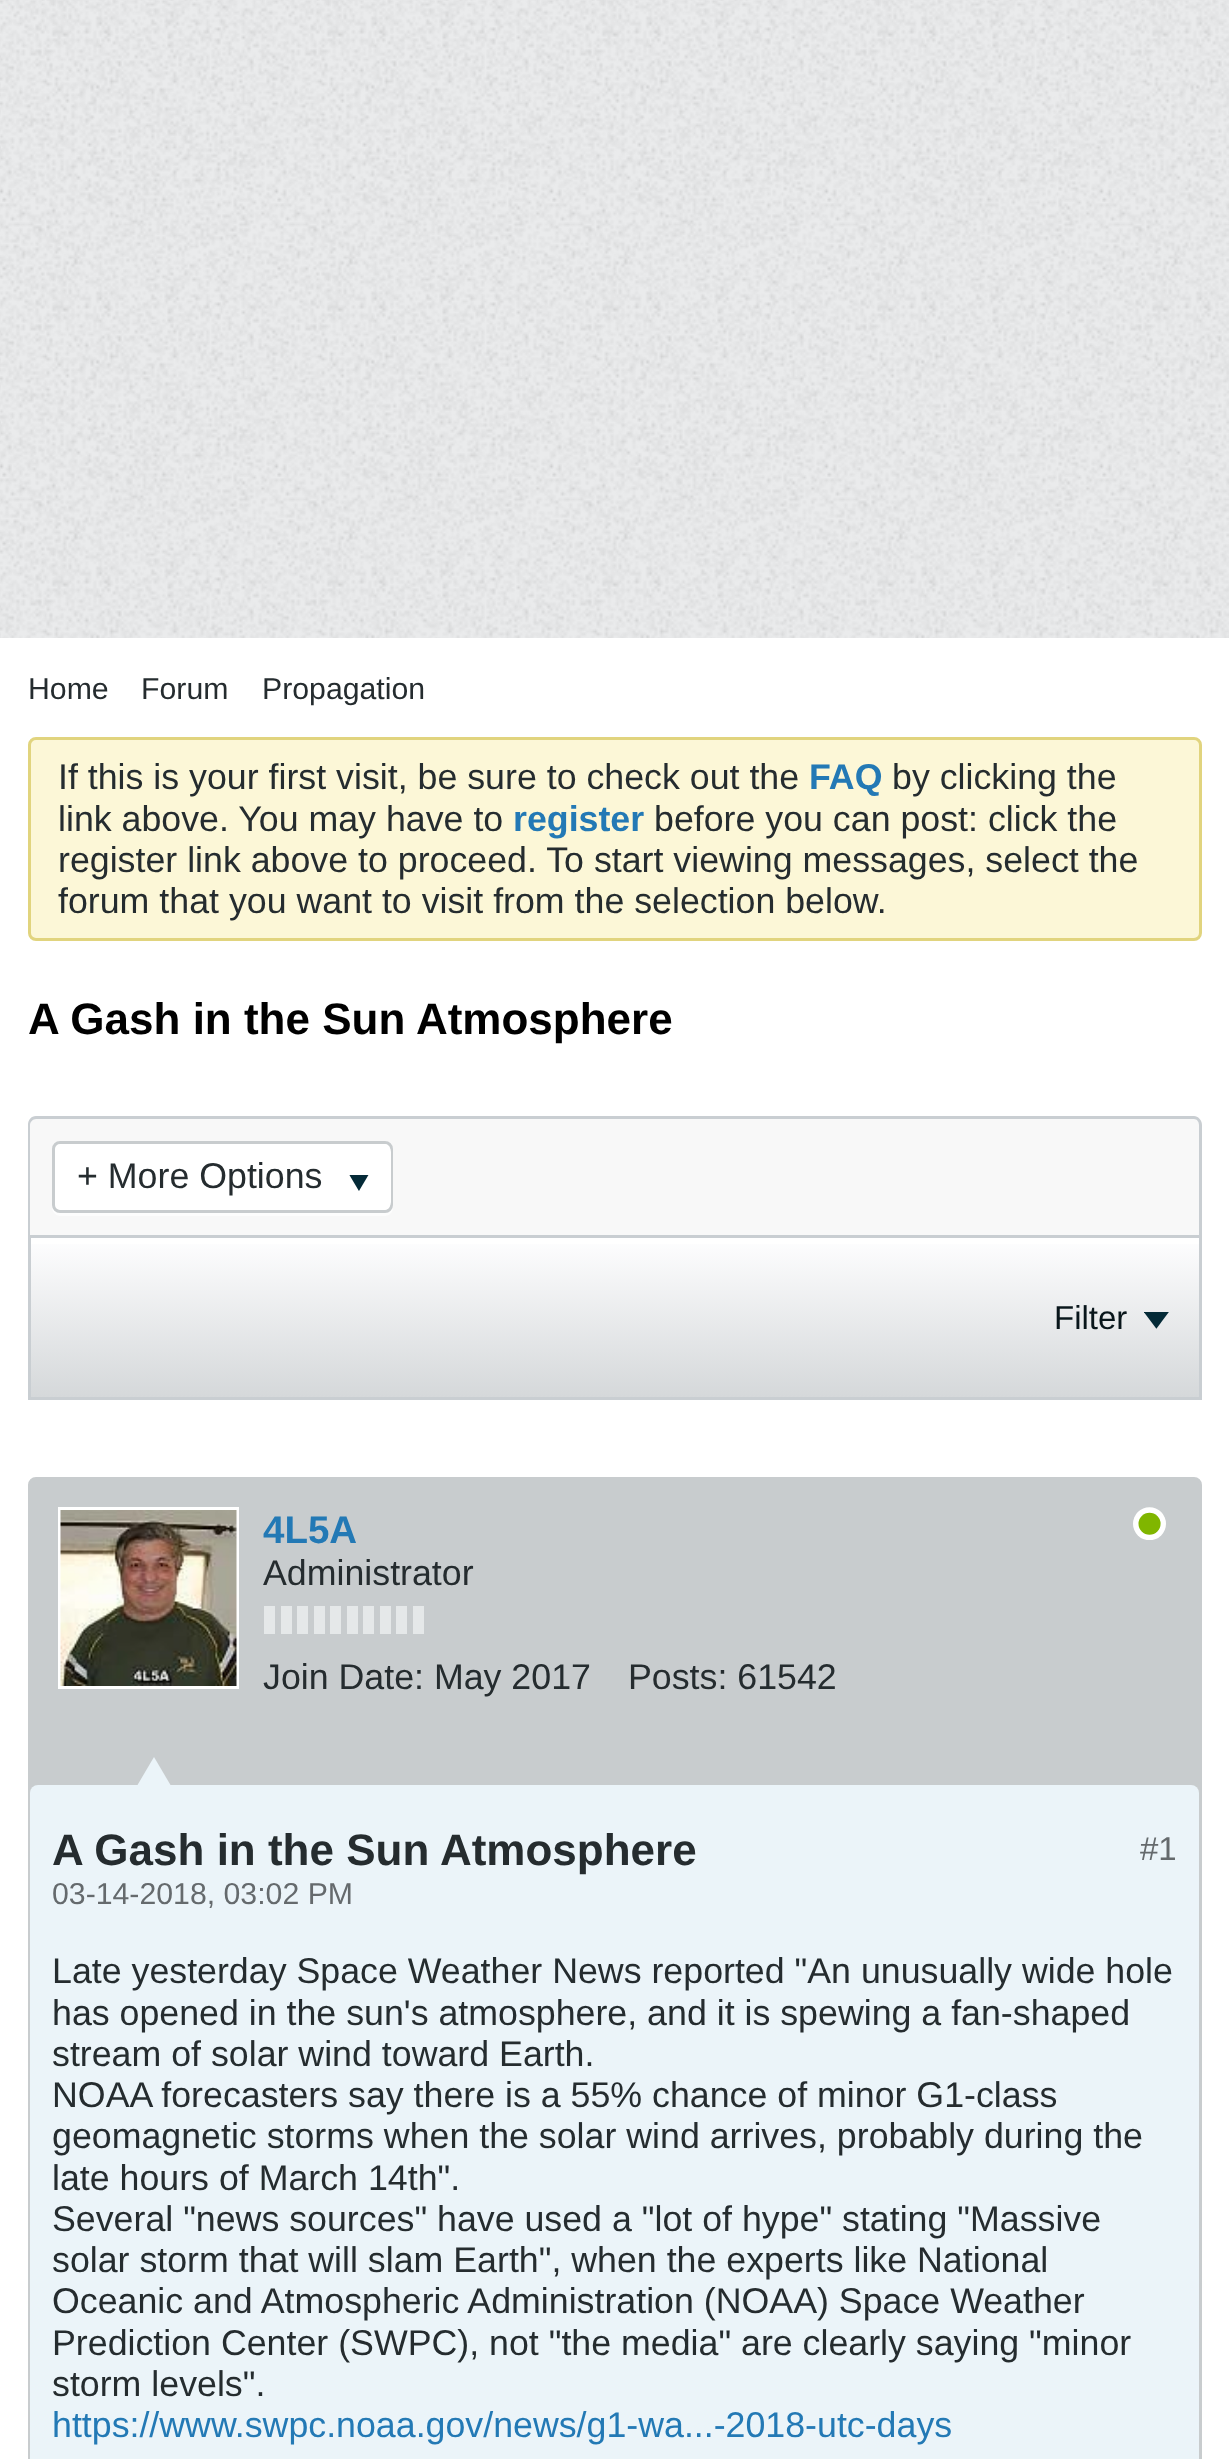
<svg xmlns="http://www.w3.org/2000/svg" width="1229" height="2459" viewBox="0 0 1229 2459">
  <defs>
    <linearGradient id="g1" gradientUnits="userSpaceOnUse" x1="615" y1="1238" x2="615" y2="1397"><stop offset="0" stop-color="#fefeff"/><stop offset="1" stop-color="#d5d8da"/></linearGradient>
  </defs>
  <rect width="100%" height="100%" fill="#eaebec"/>
  <image x="0" y="0" width="1229" height="638" href="img1.png"/>
  <rect x="0" y="638" width="1229" height="1821" fill="#ffffff"/>
  <text x="28" y="699" font-family="Liberation Sans" font-size="30.25" fill="#252c2f">Home</text>
  <text x="141" y="699" font-family="Liberation Sans" font-size="30.25" fill="#252c2f">Forum</text>
  <text x="262" y="699" font-family="Liberation Sans" font-size="30.25" fill="#252c2f">Propagation</text>
  <rect x="29.5" y="738.5" width="1171" height="201" rx="6.5" fill="#fcf7d7" stroke="#e1d47e" stroke-width="3"/>
  <text x="58" y="789" font-family="Liberation Sans" font-size="35.75" fill="#252c2f">If this is your first visit, be sure to check out the</text>
  <text x="809" y="789" font-family="Liberation Sans" font-size="35.75" font-weight="bold" fill="#2379b5">FAQ</text>
  <text x="892" y="789" font-family="Liberation Sans" font-size="35.75" fill="#252c2f">by clicking the</text>
  <text x="58" y="831" font-family="Liberation Sans" font-size="35.75" fill="#252c2f">link above. You may have to</text>
  <text x="513" y="831" font-family="Liberation Sans" font-size="35.75" font-weight="bold" fill="#2379b5">register</text>
  <text x="654" y="831" font-family="Liberation Sans" font-size="35.75" fill="#252c2f">before you can post: click the</text>
  <text x="58" y="872" font-family="Liberation Sans" font-size="35.75" fill="#252c2f">register link above to proceed. To start viewing messages, select the</text>
  <text x="58" y="913" font-family="Liberation Sans" font-size="35.75" fill="#252c2f">forum that you want to visit from the selection below.</text>
  <text x="28" y="1034" font-family="Liberation Sans" font-size="44" font-weight="bold" fill="#000000">A Gash in the Sun Atmosphere</text>
  <path d="M36 1117H1194C1198.5 1117 1202 1120.5 1202 1125V1235H28V1125C28 1120.5 31.5 1117 36 1117Z" fill="#f8f8f8"/>
  <path d="M36 1116H1194C1198 1116 1202 1120 1202 1125V1235H28V1125C28 1120 31 1116 36 1116ZM36 1119H1194C1197 1119 1199 1122 1199 1125V1235H30V1125C30 1122 33 1119 36 1119Z" fill="#c9ced2" fill-rule="evenodd"/>
  <path d="M52 1150V1208C52 1212 56 1216 60 1216H385C389 1216 393 1212 393 1208V1207C392 1210 389 1213 385 1213H60C56 1213 52 1209 52 1204Z" fill="#fdfdfd"/>
  <rect x="53.5" y="1142.5" width="338" height="69" rx="6.5" fill="#ffffff" stroke="#c8ccce" stroke-width="3"/>
  <rect x="55" y="1144" width="336" height="66" rx="8" fill="#ffffff"/>
  <text x="77" y="1188" font-family="Liberation Sans" font-size="35.75" fill="#252c2f">+ More Options</text>
  <image x="349" y="1175" width="20" height="16" href="img2.png"/>
  <rect x="31" y="1244" width="1168" height="153" fill="url(#g1)"/>
  <rect x="29.5" y="1236.5" width="1171" height="162" fill="none" stroke="#c9ced2" stroke-width="3"/>
  <text x="1054" y="1329" font-family="Liberation Sans" font-size="33" fill="#09161b">Filter</text>
  <image x="1144" y="1312" width="25" height="17" href="img3.png"/>
  <rect x="29.5" y="1478.5" width="1171" height="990" rx="6.5" fill="#c8ccce" stroke="#c8ccce" stroke-width="3"/>
  <rect x="59.5" y="1508.5" width="178" height="179" fill="none" stroke="#ffffff" stroke-width="3"/>
  <image x="60" y="1510" width="177" height="176" href="img4.png"/>
  <text x="263" y="1543" font-family="Liberation Sans" font-size="38.5" font-weight="bold" fill="#2379b5">4L5A</text>
  <image x="1133" y="1507" width="33" height="33" href="img5.png"/>
  <text x="263" y="1585" font-family="Liberation Sans" font-size="35.75" fill="#252c2f">Administrator</text>
  <rect x="264" y="1606" width="11" height="28" fill="#e5e8e9"/>
  <rect x="281" y="1606" width="11" height="28" fill="#e5e8e9"/>
  <rect x="297" y="1606" width="11" height="28" fill="#e5e8e9"/>
  <rect x="314" y="1606" width="11" height="28" fill="#e5e8e9"/>
  <rect x="330" y="1606" width="11" height="28" fill="#e5e8e9"/>
  <rect x="347" y="1606" width="11" height="28" fill="#e5e8e9"/>
  <rect x="363" y="1606" width="11" height="28" fill="#e5e8e9"/>
  <rect x="380" y="1606" width="11" height="28" fill="#e5e8e9"/>
  <rect x="396" y="1606" width="11" height="28" fill="#e5e8e9"/>
  <rect x="413" y="1606" width="11" height="28" fill="#e5e8e9"/>
  <text x="263" y="1689" font-family="Liberation Sans" font-size="35.75" fill="#252c2f">Join Date: May 2017</text>
  <text x="628" y="1689" font-family="Liberation Sans" font-size="35.75" fill="#252c2f">Posts: 61542</text>
  <rect x="30" y="1785" width="1169" height="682" rx="8" fill="#ebf4f9"/>
  <path d="M170.5 1785H137.5L154 1757Z" fill="#ebf4f9"/>
  <text x="52" y="1865" font-family="Liberation Sans" font-size="44" font-weight="bold" fill="#252c2f">A Gash in the Sun Atmosphere</text>
  <text x="52" y="1904" font-family="Liberation Sans" font-size="30.25" fill="#656a6d">03-14-2018, 03:02 PM</text>
  <text x="1140" y="1860" font-family="Liberation Sans" font-size="33" fill="#656a6d">#1</text>
  <text x="52" y="1983" font-family="Liberation Sans" font-size="35.75" fill="#252c2f">Late yesterday Space Weather News reported "An unusually wide hole</text>
  <text x="52" y="2025" font-family="Liberation Sans" font-size="35.75" fill="#252c2f">has opened in the sun's atmosphere, and it is spewing a fan-shaped</text>
  <text x="52" y="2066" font-family="Liberation Sans" font-size="35.75" fill="#252c2f">stream of solar wind toward Earth.</text>
  <text x="52" y="2107" font-family="Liberation Sans" font-size="35.75" fill="#252c2f">NOAA forecasters say there is a 55% chance of minor G1-class</text>
  <text x="52" y="2148" font-family="Liberation Sans" font-size="35.75" fill="#252c2f">geomagnetic storms when the solar wind arrives, probably during the</text>
  <text x="52" y="2190" font-family="Liberation Sans" font-size="35.75" fill="#252c2f">late hours of March 14th".</text>
  <text x="52" y="2231" font-family="Liberation Sans" font-size="35.75" fill="#252c2f">Several "news sources" have used a "lot of hype" stating "Massive</text>
  <text x="52" y="2272" font-family="Liberation Sans" font-size="35.75" fill="#252c2f">solar storm that will slam Earth", when the experts like National</text>
  <text x="52" y="2313" font-family="Liberation Sans" font-size="35.75" fill="#252c2f">Oceanic and Atmospheric Administration (NOAA) Space Weather</text>
  <text x="52" y="2355" font-family="Liberation Sans" font-size="35.75" fill="#252c2f">Prediction Center (SWPC), not "the media" are clearly saying "minor</text>
  <text x="52" y="2396" font-family="Liberation Sans" font-size="35.75" fill="#252c2f">storm levels".</text>
  <text x="52" y="2437" font-family="Liberation Sans" font-size="35.75" fill="#2379b5">https://www.swpc.noaa.gov/news/g1-wa...-2018-utc-days</text>
</svg>
